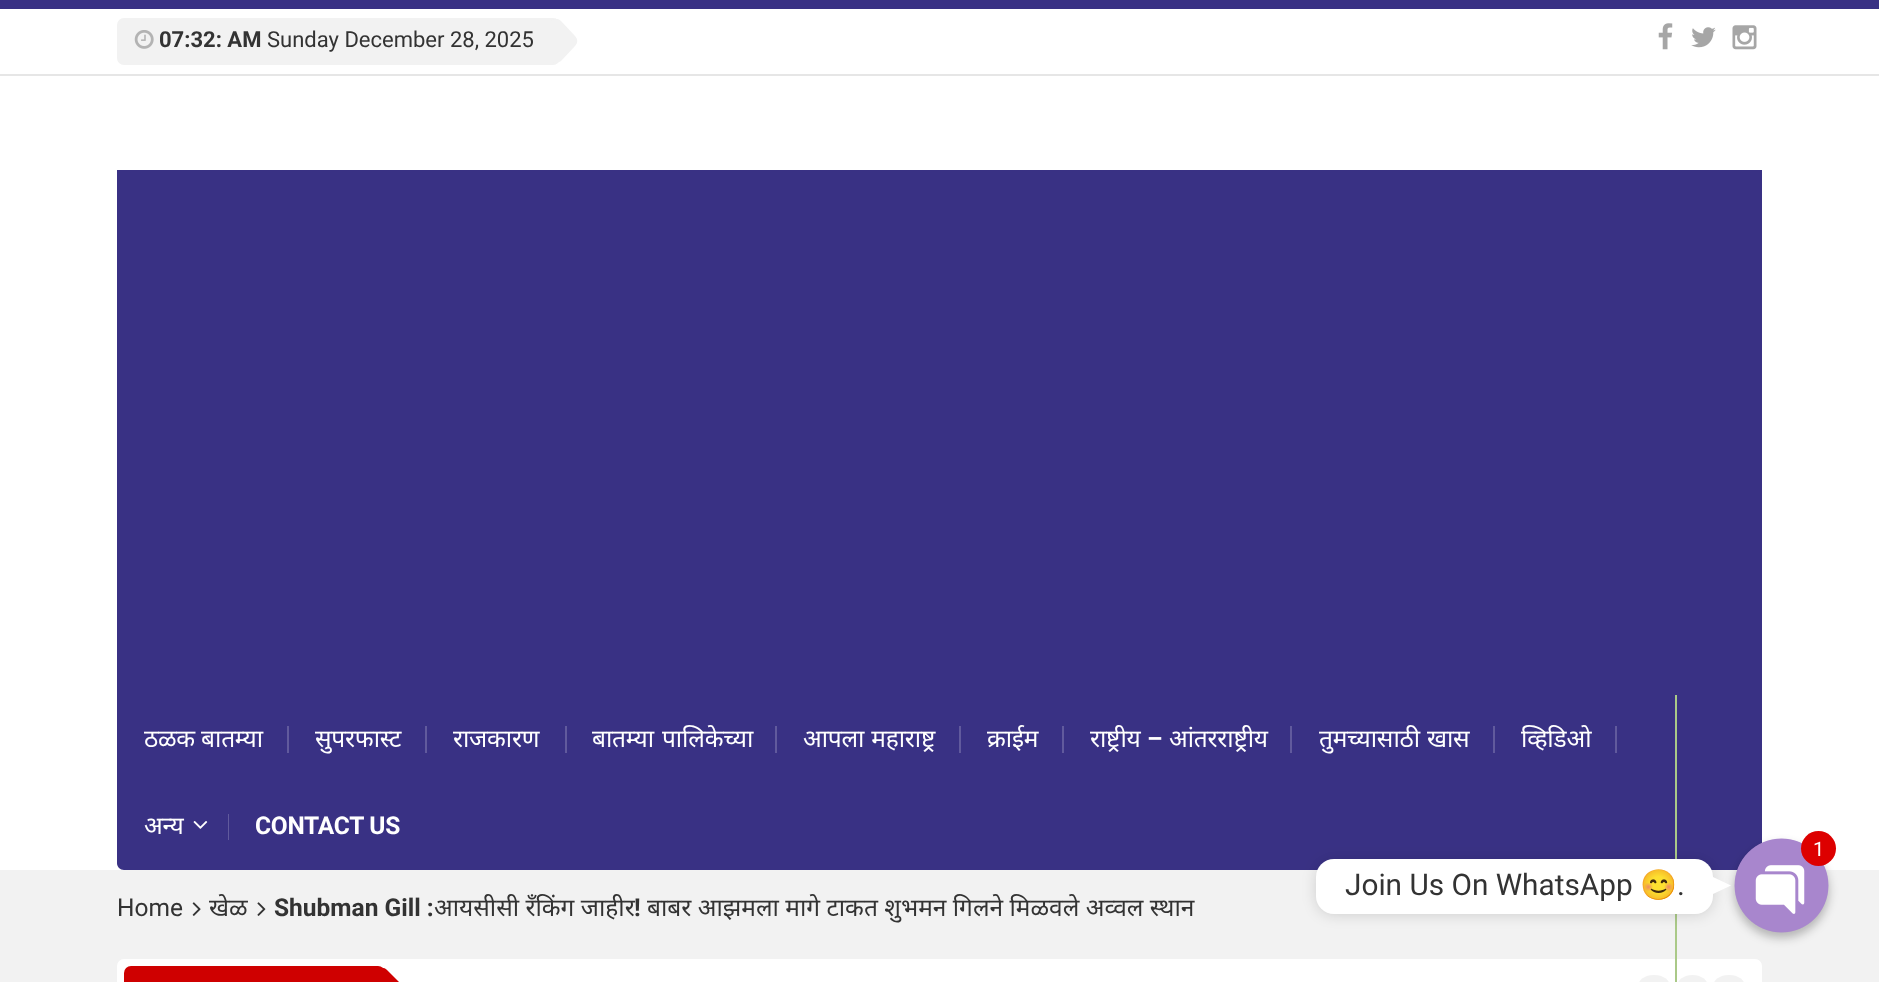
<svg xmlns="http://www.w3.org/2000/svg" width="1879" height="982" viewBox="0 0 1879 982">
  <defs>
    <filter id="blur1" x="-50%" y="-200%" width="200%" height="500%"><feGaussianBlur stdDeviation="5"/></filter>
    <filter id="blur2" x="-50%" y="-200%" width="200%" height="500%"><feGaussianBlur stdDeviation="7"/></filter>
  </defs>
  <rect width="100%" height="100%" fill="#ffffff"/>
  <rect x="0" y="0" width="1879" height="9" fill="#393184"/>
  <rect x="0" y="74" width="1879" height="2" fill="#e6e6e6"/>
  <rect x="117" y="18" width="443" height="47" rx="7" fill="#f2f2f2"/>
  <image x="134" y="30" width="20" height="19" href="img1.png"/>
  <text x="159" y="47" font-family="Roboto" font-size="22" font-weight="bold" fill="#333333">07:32: AM</text>
  <path d="M561 21L575 36C578 39 578 43 575 46L561 61C558 63 553 63 551 61L536 46C533 43 533 39 536 36L551 21C553 18 558 18 561 21Z" fill="#f2f2f2"/>
  <text x="267" y="47" font-family="Roboto" font-size="22" fill="#333333">Sunday December 28, 2025</text>
  <image x="1658" y="23" width="15" height="27" href="img2.png"/>
  <image x="1691" y="27" width="25" height="21" href="img3.png"/>
  <image x="1732" y="25" width="25" height="25" href="img4.png"/>
  <path d="M117 170H1762V863C1762 867 1759 870 1755 870H124C120 870 117 867 117 863Z" fill="#393184"/>
  <text x="144" y="747" font-family="Noto Sans" font-size="24.5" letter-spacing="-0.25" fill="#ffffff">ठळक बातम्या</text>
  <rect x="287" y="726" width="2" height="27" fill="#615a9d"/>
  <text x="315" y="747" font-family="Noto Sans" font-size="24.5" letter-spacing="-0.25" fill="#ffffff">सुपरफास्ट</text>
  <rect x="425" y="726" width="2" height="27" fill="#615a9d"/>
  <text x="453" y="747" font-family="Noto Sans" font-size="24.5" letter-spacing="-0.25" fill="#ffffff">राजकारण</text>
  <rect x="565" y="726" width="2" height="27" fill="#615a9d"/>
  <text x="592" y="747" word-spacing="2" font-family="Noto Sans" font-size="24.5" letter-spacing="-0.25" fill="#ffffff">बातम्या पालिकेच्या</text>
  <rect x="775" y="726" width="2" height="27" fill="#615a9d"/>
  <text x="803" y="747" word-spacing="1" font-family="Noto Sans" font-size="24.5" letter-spacing="-0.25" fill="#ffffff">आपला महाराष्ट्र</text>
  <rect x="959" y="726" width="2" height="27" fill="#615a9d"/>
  <text x="987" y="747" font-family="Noto Sans" font-size="24.5" letter-spacing="-0.25" fill="#ffffff">क्राईम</text>
  <rect x="1062" y="726" width="2" height="27" fill="#615a9d"/>
  <text x="1090" y="747" font-family="Noto Sans" font-size="24.5" letter-spacing="-0.25" fill="#ffffff">राष्ट्रीय</text>
  <text x="1147" y="747" font-family="Roboto" font-size="24.5" font-weight="bold" letter-spacing="-0.25" fill="#ffffff">–</text>
  <text x="1169" y="747" font-family="Noto Sans" font-size="24.5" letter-spacing="-0.25" fill="#ffffff">आंतरराष्ट्रीय</text>
  <rect x="1290" y="726" width="2" height="27" fill="#615a9d"/>
  <text x="1319" y="747" word-spacing="1" font-family="Noto Sans" font-size="24.5" letter-spacing="-0.25" fill="#ffffff">तुमच्यासाठी खास</text>
  <rect x="1493" y="726" width="2" height="27" fill="#615a9d"/>
  <text x="1521" y="747" font-family="Noto Sans" font-size="24.5" letter-spacing="-0.25" fill="#ffffff">व्हिडिओ</text>
  <rect x="1615" y="726" width="2" height="27" fill="#615a9d"/>
  <text x="144" y="834" font-family="Noto Sans" font-size="24.5" letter-spacing="-0.25" fill="#ffffff">अन्य</text>
  <image x="193" y="821" width="15" height="8" href="img5.png"/>
  <rect x="228" y="814" width="1" height="26" fill="#615a9d"/>
  <text x="255" y="834" font-family="Roboto" font-size="24.5" font-weight="bold" letter-spacing="-0.25" fill="#ffffff">CONTACT US</text>
  <rect x="0" y="870" width="1879" height="112" fill="#f2f2f2"/>
  <rect x="117" y="959" width="1645" height="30" rx="7" fill="#ffffff"/>
  <rect x="1675" y="695" width="2" height="287" fill="#aac988"/>
  <text x="117" y="916" font-family="Roboto" font-size="24.5" fill="#333333">Home</text>
  <image x="192" y="902" width="9" height="14" href="img6.png"/>
  <text x="209" y="916" font-family="Noto Sans" font-size="24.5" fill="#333333">खेळ</text>
  <image x="257" y="902" width="9" height="14" href="img7.png"/>
  <text x="274" y="916" font-family="Roboto" font-size="24.5" font-weight="bold" fill="#333333">Shubman Gill :</text>
  <text x="434" y="916" font-family="Noto Sans" font-size="24.5" fill="#333333">आयसीसी रँकिंग जाहीर</text>
  <text x="634" y="916" font-family="Roboto" font-size="24.5" font-weight="bold" fill="#333333">!</text>
  <text x="647" y="916" font-family="Noto Sans" font-size="24.5" fill="#333333">बाबर आझमला मागे टाकत शुभमन गिलने मिळवले अव्वल स्थान</text>
  <rect x="124" y="966" width="261" height="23" rx="7" fill="#cf0000"/>
  <path d="M362 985L377 970C380 967 384 967 387 970L402 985C405 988 405 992 402 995L387 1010C384 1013 380 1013 377 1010L362 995C360 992 360 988 362 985Z" fill="#cf0000"/>
  <rect x="1638" y="975" width="32" height="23" rx="15.5" fill="#f2f2f2"/>
  <rect x="1677" y="975" width="31" height="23" rx="15.5" fill="#f2f2f2"/>
  <rect x="1713" y="975" width="32" height="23" rx="15.5" fill="#f2f2f2"/>
  <rect x="1734" y="844" width="95" height="94" rx="47" fill="#000000" fill-opacity="0.25" filter="url(#blur1)"/>
  <image x="1734" y="838" width="95" height="95" href="img8.png"/>
  <circle cx="1818.5" cy="848.5" r="17.5" fill="#dd0000"/>
  <text x="1813" y="856" font-family="Roboto" font-size="20" fill="#ffffff">1</text>
  <rect x="1316" y="861" width="397" height="54" rx="18" fill="#000000" fill-opacity="0.15" filter="url(#blur2)"/>
  <rect x="1316" y="859" width="397" height="55" rx="18" fill="#ffffff"/>
  <text x="1345" y="895" font-family="Roboto" font-size="29.75" fill="#333333">Join Us On WhatsApp</text>
  <text x="1640" y="895" font-family="Noto Color Emoji" font-size="29.75" fill="#333333">😊</text>
  <text x="1677" y="895" font-family="Roboto" font-size="29.75" fill="#333333">.</text>
  <path d="M1713 894V877L1731 885.5Z" fill="#ffffff"/>
</svg>
